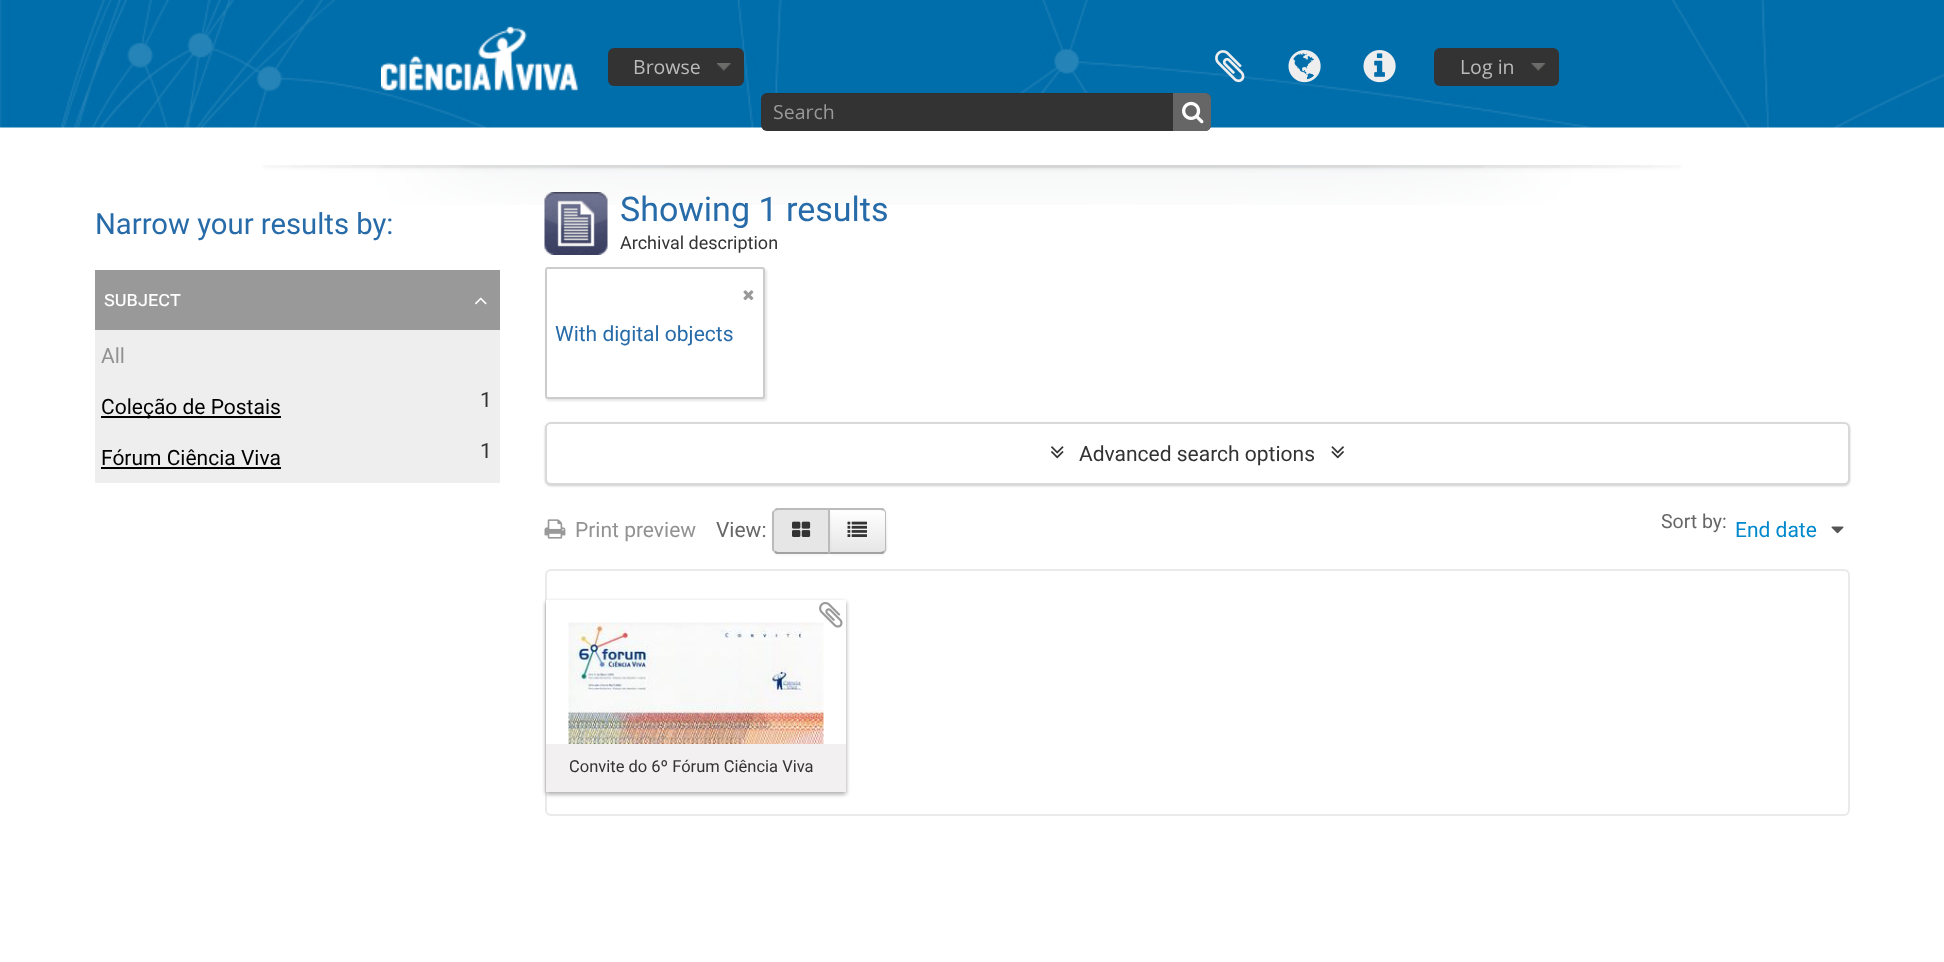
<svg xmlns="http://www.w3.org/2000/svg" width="1944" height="962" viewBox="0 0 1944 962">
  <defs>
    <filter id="blur1" x="-50%" y="-200%" width="200%" height="500%"><feGaussianBlur stdDeviation="1"/></filter>
    <filter id="blur2" x="-50%" y="-200%" width="200%" height="500%"><feGaussianBlur stdDeviation="1.5"/></filter>
    <clipPath id="clip1"><path d="M828 509H881C884.5 509 887 511.5 887 515V548C887 551.5 884.5 554 881 554H828Z"/></clipPath>
    <linearGradient id="g1" gradientUnits="userSpaceOnUse" x1="857" y1="510" x2="857" y2="552"><stop offset="0" stop-color="#ffffff"/><stop offset="1" stop-color="#e6e6e6"/></linearGradient>
    <filter id="blur3" x="-50%" y="-200%" width="200%" height="500%"><feGaussianBlur stdDeviation="2"/></filter>
  </defs>
  <rect width="100%" height="100%" fill="#ffffff"/>
  <image x="0" y="0" width="1944" height="128" href="img1.png"/>
  <image x="381" y="26" width="197" height="65" href="img2.png"/>
  <rect x="608" y="48" width="136" height="38" rx="6" fill="#333333"/>
  <image x="717" y="63" width="14" height="8" href="img3.png"/>
  <text x="633" y="74" font-family="Open Sans" font-size="19.5" fill="#bbbbbb">Browse</text>
  <rect x="761" y="93" width="450" height="38" rx="6" fill="#333333"/>
  <path d="M766 94H1204C1208 94 1210 97 1210 100V126C1210 127 1210 128 1209 129C1210 128 1211 127 1211 125V99C1211 96 1208 93 1205 93H767C765 93 763 94 762 96C763 95 765 94 766 94Z" fill="#000000" fill-opacity="0.07"/>
  <text x="773" y="119" font-family="Open Sans" font-size="19.5" fill="#999999">Search</text>
  <path d="M1173 93H1205C1208.5 93 1211 95.5 1211 99V125C1211 128.5 1208.5 131 1205 131H1173Z" fill="#666666"/>
  <image x="1182" y="101" width="22" height="23" href="img4.png"/>
  <image x="1215" y="50" width="30" height="33" href="img5.png"/>
  <image x="1288" y="50" width="33" height="33" href="img6.png"/>
  <image x="1363" y="50" width="33" height="33" href="img7.png"/>
  <rect x="1434" y="48" width="125" height="38" rx="6" fill="#333333"/>
  <image x="1531" y="63" width="15" height="8" href="img8.png"/>
  <text x="1460" y="74" font-family="Open Sans" font-size="19.5" fill="#bbbbbb">Log in</text>
  <image x="262" y="165" width="1420" height="40" href="img9.png"/>
  <text x="95" y="234" font-family="Roboto" font-size="29.25" fill="#286ba9">Narrow your results by:</text>
  <rect x="95" y="270" width="405" height="60" fill="#999999"/>
  <text x="104" y="306" font-family="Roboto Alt" font-size="21" fill="#ffffff">subject</text>
  <image x="475" y="297" width="12" height="8" href="img10.png"/>
  <rect x="95" y="330" width="405" height="153" fill="#eeeeee"/>
  <text x="101" y="363" font-family="Roboto" font-size="21" fill="#929292">All</text>
  <rect x="101" y="416" width="180" height="2" fill="#000000"/>
  <text x="101" y="414" font-family="Roboto" font-size="21" fill="#000000">Coleção de Postais</text>
  <text x="480" y="407" font-family="Roboto" font-size="21" fill="#333333">1</text>
  <text x="101" y="465" font-family="Roboto" font-size="21" fill="#000000">Fórum Ciência Viva</text>
  <rect x="101" y="467" width="180" height="2" fill="#000000"/>
  <text x="480" y="458" font-family="Roboto" font-size="21" fill="#333333">1</text>
  <image x="544" y="192" width="64" height="63" href="img11.png"/>
  <text x="620" y="221" font-family="Roboto" font-size="34" fill="#286ba9">Showing 1 results</text>
  <text x="620" y="249" font-family="Roboto" font-size="18" fill="#333333">Archival description</text>
  <rect x="546" y="269" width="221" height="132" rx="3" fill="#000000" fill-opacity="0.1" filter="url(#blur1)"/>
  <rect x="546" y="268" width="218" height="130" rx="2" fill="#ffffff" stroke="#cccccc" stroke-width="2"/>
  <image x="743" y="290" width="11" height="11" href="img12.png"/>
  <text x="555" y="341" font-family="Roboto" font-size="21" fill="#286ba9">With digital objects</text>
  <rect x="545" y="423" width="1305" height="63" rx="6" fill="#000000" fill-opacity="0.2" filter="url(#blur1)"/>
  <rect x="546" y="423" width="1303" height="61" rx="5" fill="#ffffff" stroke="#d9d9d9" stroke-width="2"/>
  <image x="1051" y="446" width="13" height="13" href="img13.png"/>
  <text x="1079" y="461" font-family="Roboto" font-size="21" fill="#333333">Advanced search options</text>
  <image x="1331" y="446" width="13" height="13" href="img14.png"/>
  <image x="544" y="519" width="22" height="20" href="img15.png"/>
  <text x="575" y="537" font-family="Roboto" font-size="21" fill="#929292">Print preview</text>
  <text x="716" y="537" font-family="Roboto" font-size="21" fill="#666666">View:</text>
  <rect x="828" y="510" width="59" height="45" rx="6" fill="#000000" fill-opacity="0.05" filter="url(#blur2)"/>
  <path d="M828 509H881C884.5 509 887 511.5 887 515V548C887 551.5 884.5 554 881 554H828Z" fill="#f5f5f5"/>
  <g clip-path="url(#clip1)">
    <rect x="830" y="510" width="57" height="42" fill="url(#g1)"/>
  </g>
  <path d="M830 510L828 508H883L885 510L884 511C883 511 882 510 880 510Z" fill="#bbbbbb"/>
  <path d="M885 510C886 511 886 513 886 514V548C886 549 886 551 885 552L884 551C885 550 885 549 885 548V514C885 513 885 512 884 511Z" fill="#bbbbbb"/>
  <path d="M883 554H828L830 552H880C882 552 883 551 884 551L885 552Z" fill="#a2a2a2"/>
  <rect x="773" y="510" width="57" height="45" rx="6" fill="#000000" fill-opacity="0.05" filter="url(#blur2)"/>
  <path d="M779 509H830V554H779C775.5 554 773 551.5 773 548V515C773 511.5 775.5 509 779 509Z" fill="#e6e6e6"/>
  <path d="M778 510L775 511L774 510L776 508H830L828 510Z" fill="#bbbbbb"/>
  <path d="M830 508L828 510V552L830 554Z" fill="#bbbbbb"/>
  <path d="M830 554H776L774 552L775 551L778 552H828Z" fill="#a2a2a2"/>
  <path d="M772 512L774 510L775 511C774 512 774 513 774 514V548C774 549 774 550 775 551L774 552L772 550Z" fill="#bbbbbb"/>
  <image x="792" y="521" width="19" height="16" href="img16.png"/>
  <image x="847" y="521" width="20" height="16" href="img17.png"/>
  <text x="1661" y="528" font-family="Roboto" font-size="19.5" fill="#666666">Sort by:</text>
  <text x="1735" y="537" font-family="Roboto" font-size="21" fill="#0088cc">End date</text>
  <image x="1831" y="526" width="13" height="8" href="img18.png"/>
  <rect x="546" y="570" width="1303" height="245" rx="5" fill="none" stroke="#eaeaea" stroke-width="2"/>
  <rect x="546" y="602" width="300" height="192" fill="#191919" fill-opacity="0.4" filter="url(#blur3)"/>
  <rect x="546" y="600" width="300" height="144" fill="#ffffff"/>
  <image x="568" y="622" width="256" height="122" href="img19.png"/>
  <rect x="546" y="744" width="300" height="48" fill="#f2f0f0"/>
  <image x="819" y="602" width="24" height="26" href="img20.png"/>
  <text x="569" y="772" font-family="Roboto" font-size="16.5" fill="#333333">Convite do 6º Fórum Ciência Viva</text>
</svg>
